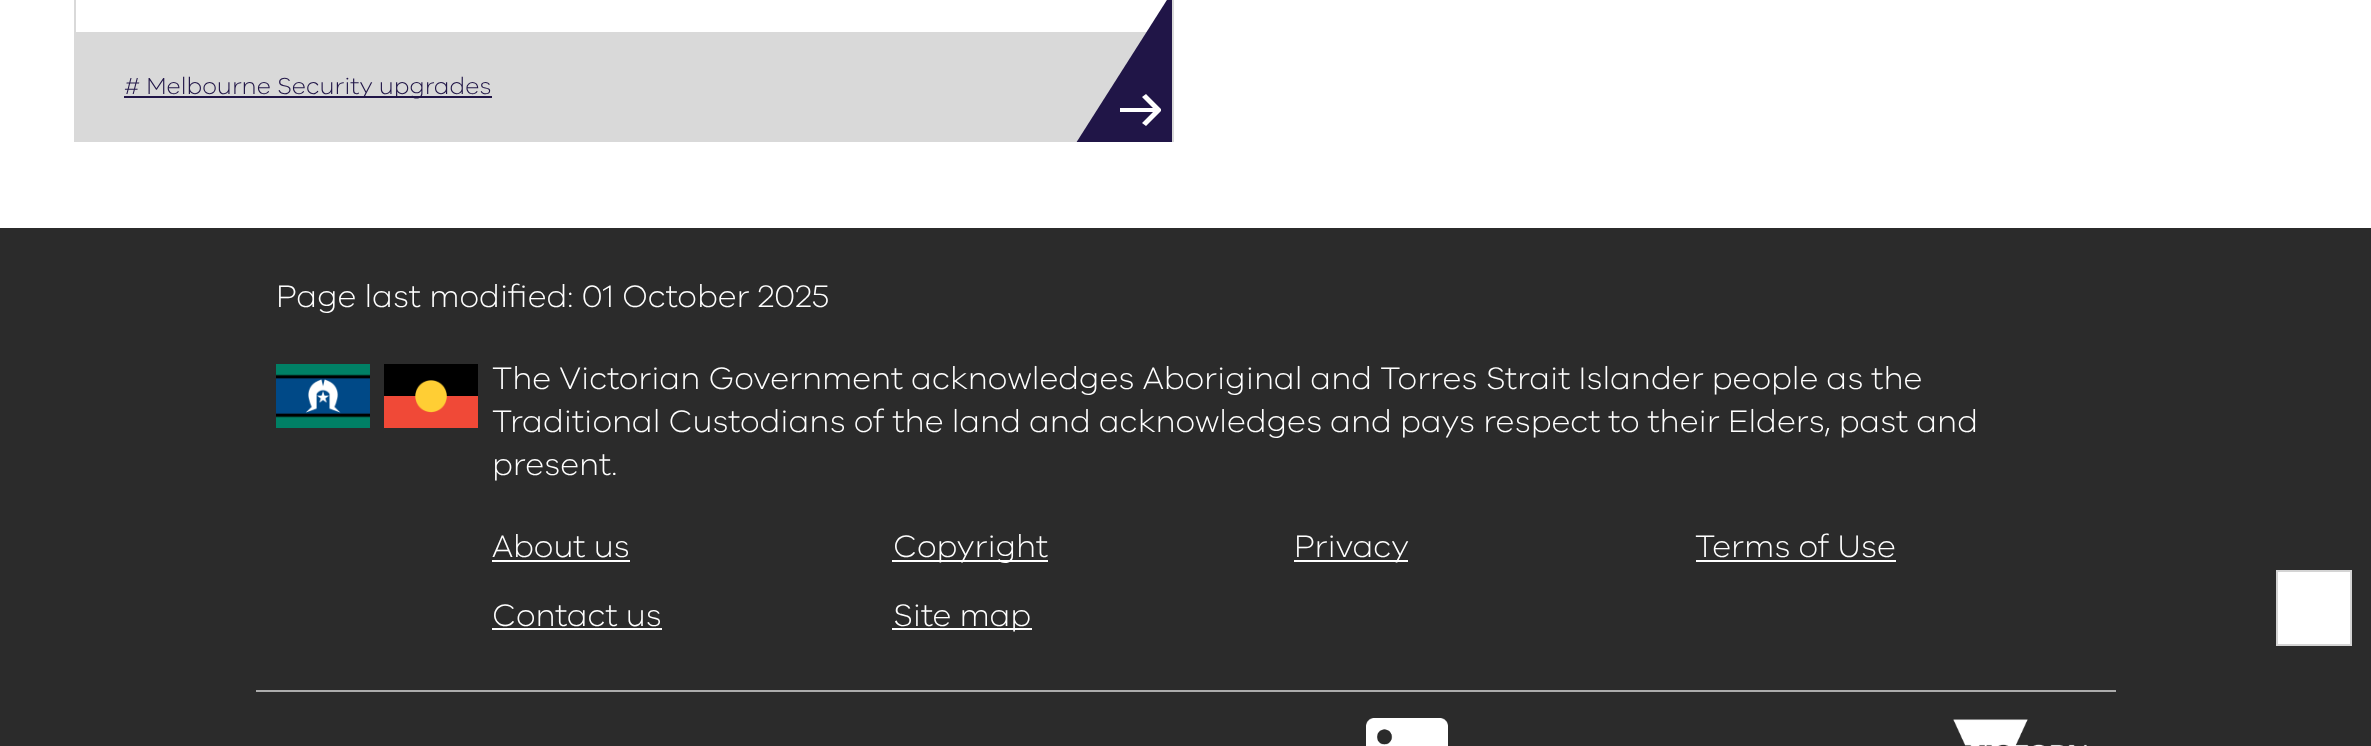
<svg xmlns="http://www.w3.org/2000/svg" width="2371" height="746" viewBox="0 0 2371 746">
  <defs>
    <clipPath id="clip1"><rect x="1076" y="0" width="96" height="142"/></clipPath>
  </defs>
  <rect width="100%" height="100%" fill="#ffffff"/>
  <rect x="75" y="-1" width="1098" height="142" fill="none" stroke="#d9d9d9" stroke-width="2"/>
  <rect x="76" y="32" width="1071" height="108" fill="#d9d9d9"/>
  <rect x="124" y="96" width="368" height="2" fill="#201547"/>
  <text x="124" y="94" font-family="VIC" font-size="24" font-weight="300" fill="#201547"># Melbourne Security upgrades</text>
  <g clip-path="url(#clip1)">
    <path d="M1172 143H1076L1172-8Z" fill="#201547"/>
  </g>
  <path d="M1146 94L1142 97L1153 108H1120V112H1153L1142 123L1146 126L1161 111V109Z" fill="#ffffff"/>
  <rect x="0" y="228" width="2371" height="518" fill="#2b2b2b"/>
  <text x="276" y="307" font-family="VIC" font-size="32" font-weight="300" fill="#ffffff">Page last modified: 01 October 2025</text>
  <image x="276" y="364" width="94" height="64" href="img1.png"/>
  <image x="384" y="364" width="94" height="64" href="img2.png"/>
  <text x="492" y="389" font-family="VIC" font-size="32" font-weight="300" fill="#ffffff">The Victorian Government acknowledges Aboriginal and Torres Strait Islander people as the</text>
  <text x="492" y="432" font-family="VIC" font-size="32" font-weight="300" fill="#ffffff">Traditional Custodians of the land and acknowledges and pays respect to their Elders, past and</text>
  <text x="492" y="475" font-family="VIC" font-size="32" font-weight="300" fill="#ffffff">present.</text>
  <text x="492" y="557" font-family="VIC" font-size="32" font-weight="300" fill="#ffffff">About us</text>
  <rect x="492" y="560" width="138" height="2" fill="#ffffff"/>
  <rect x="892" y="560" width="156" height="2" fill="#ffffff"/>
  <text x="893" y="557" font-family="VIC" font-size="32" font-weight="300" fill="#ffffff">Copyright</text>
  <rect x="1294" y="560" width="114" height="2" fill="#ffffff"/>
  <text x="1294" y="557" font-family="VIC" font-size="32" font-weight="300" fill="#ffffff">Privacy</text>
  <text x="1695" y="557" font-family="VIC" font-size="32" font-weight="300" fill="#ffffff">Terms of Use</text>
  <rect x="1696" y="560" width="200" height="2" fill="#ffffff"/>
  <text x="492" y="626" font-family="VIC" font-size="32" font-weight="300" fill="#ffffff">Contact us</text>
  <rect x="492" y="628" width="170" height="2" fill="#ffffff"/>
  <rect x="892" y="628" width="140" height="2" fill="#ffffff"/>
  <text x="893" y="626" font-family="VIC" font-size="32" font-weight="300" fill="#ffffff">Site map</text>
  <rect x="256" y="690" width="1860" height="2" fill="#acacac"/>
  <image x="1366" y="718" width="82" height="28" href="img3.png"/>
  <image x="1953" y="719" width="134" height="27" href="img4.png"/>
  <rect x="2277" y="571" width="74" height="74" fill="#ffffff" stroke="#d4d4d4" stroke-width="2"/>
</svg>
